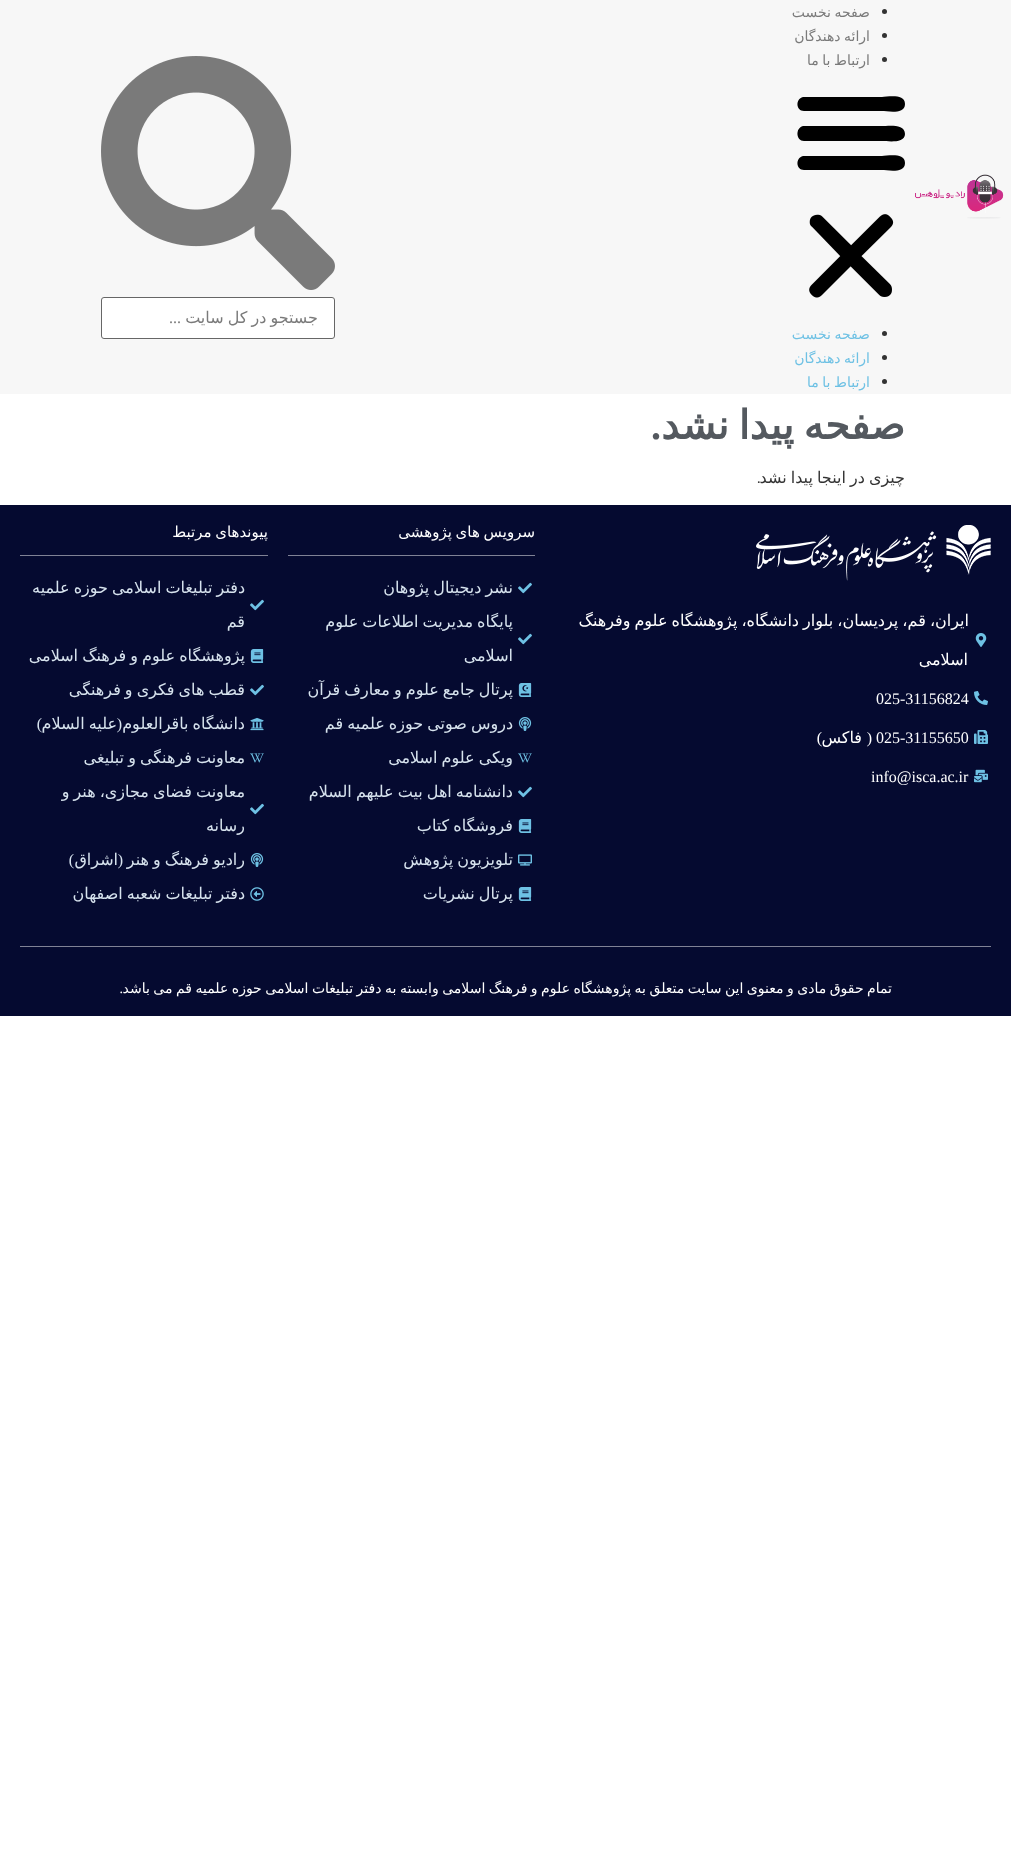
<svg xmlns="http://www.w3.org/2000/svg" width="1011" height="1860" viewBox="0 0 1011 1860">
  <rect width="100%" height="100%" fill="#ffffff"/>
  <rect x="0" y="0" width="1011" height="394" fill="#f7f7f7"/>
  <image x="915" y="174" width="89" height="45" href="img1.png"/>
  <circle cx="884.5" cy="11.5" r="2.5" fill="#333333"/>
  <text x="870" y="17" word-spacing="-0.95" font-family="DejaVu Sans" font-size="14" direction="rtl" fill="#7a7a7a">صفحه نخست</text>
  <circle cx="884.5" cy="35.5" r="2.5" fill="#333333"/>
  <text x="870" y="41" word-spacing="-0.95" font-family="DejaVu Sans" font-size="14" direction="rtl" fill="#7a7a7a">ارائه دهندگان</text>
  <circle cx="884.5" cy="59.5" r="2.5" fill="#333333"/>
  <text x="870" y="65" word-spacing="-0.95" font-family="DejaVu Sans" font-size="14" direction="rtl" fill="#7a7a7a">ارتباط با ما</text>
  <path d="M804 111H882C887 111 905 115 905 104C905 93 887 97 882 97H803C795 99 796 111 804 111ZM804 141H882C887 141 905 144 905 134C905 123 887 126 882 126H803C795 128 796 141 804 141ZM804 170H882C887 170 905 174 905 163C905 152 887 156 882 156H803C795 158 796 170 804 170Z" fill="#000000"/>
  <image x="809" y="214" width="85" height="84" href="img2.png"/>
  <circle cx="884.5" cy="333.5" r="2.5" fill="#333333"/>
  <text x="870" y="339" word-spacing="-0.95" font-family="DejaVu Sans" font-size="14" direction="rtl" fill="#6ec1e4">صفحه نخست</text>
  <circle cx="884.5" cy="357.5" r="2.5" fill="#333333"/>
  <text x="870" y="363" word-spacing="-0.95" font-family="DejaVu Sans" font-size="14" direction="rtl" fill="#6ec1e4">ارائه دهندگان</text>
  <circle cx="884.5" cy="381.5" r="2.5" fill="#333333"/>
  <text x="870" y="387" word-spacing="-0.95" font-family="DejaVu Sans" font-size="14" direction="rtl" fill="#6ec1e4">ارتباط با ما</text>
  <image x="101" y="56" width="234" height="234" href="img3.png"/>
  <rect x="101.5" y="297.5" width="233" height="41" rx="2.5" fill="#ffffff" stroke="#666666"/>
  <text x="318" y="323" word-spacing="-1" font-family="DejaVu Sans" font-size="16" direction="rtl" fill="#7a7a7a">جستجو در کل سایت</text>
  <text x="181" y="323" font-family="Liberation Serif" font-size="16" direction="rtl" fill="#7a7a7a">...</text>
  <text x="905" y="439" word-spacing="-3" font-family="DejaVu Sans" font-size="40" font-weight="bold" direction="rtl" fill="#54595f">صفحه پیدا نشد</text>
  <text x="661" y="439" font-family="Liberation Serif" font-size="40" font-weight="bold" direction="rtl" fill="#54595f">.</text>
  <text x="905" y="483" word-spacing="-1" font-family="DejaVu Sans" font-size="16" direction="rtl" fill="#333333">چیزی در اینجا پیدا نشد</text>
  <text x="761" y="483" font-family="Roboto" font-size="16" direction="rtl" fill="#333333">.</text>
  <rect x="0" y="505" width="1011" height="511" fill="#050a30"/>
  <image x="756" y="525" width="235" height="56" href="img4.png"/>
  <image x="975" y="633" width="12" height="14" href="img5.png"/>
  <text x="969" y="626" word-spacing="-1" font-family="DejaVu Sans" font-size="16" direction="rtl" fill="#ffffff">ایران، قم، پردیسان، بلوار دانشگاه، پژوهشگاه علوم وفرهنگ</text>
  <text x="968" y="665" font-family="DejaVu Sans" font-size="16" direction="rtl" fill="#ffffff">اسلامی</text>
  <image x="974" y="691" width="14" height="14" href="img6.png"/>
  <text x="876" y="704" font-family="Liberation Serif" font-size="16" fill="#ffffff">025-31156824</text>
  <image x="974" y="730" width="14" height="14" href="img7.png"/>
  <text x="876" y="743" font-family="Liberation Serif" font-size="16" fill="#ffffff">025-31155650</text>
  <text x="872" y="743" font-family="Liberation Serif" font-size="16" direction="rtl" fill="#ffffff">(</text>
  <text x="862" y="743" font-family="DejaVu Sans" font-size="16" direction="rtl" fill="#ffffff">فاکس</text>
  <text x="822" y="743" font-family="Liberation Serif" font-size="16" direction="rtl" fill="#ffffff">)</text>
  <image x="974" y="769" width="14" height="14" href="img8.png"/>
  <text x="871" y="782" font-family="Liberation Serif" font-size="16" fill="#ffffff">info@isca.ac.ir</text>
  <text x="535" y="537" word-spacing="-1" font-family="DejaVu Sans" font-size="15" direction="rtl" fill="#ffffff">سرویس های پژوهشی</text>
  <rect x="288" y="555" width="247" height="1" fill="#808295"/>
  <image x="518" y="582" width="14" height="12" href="img9.png"/>
  <text x="513" y="593" word-spacing="-1" font-family="DejaVu Sans" font-size="16" direction="rtl" fill="#d7e3ee">نشر دیجیتال پژوهان</text>
  <image x="518" y="633" width="14" height="12" href="img9.png"/>
  <text x="513" y="627" word-spacing="-1" font-family="DejaVu Sans" font-size="16" direction="rtl" fill="#d7e3ee">پایگاه مدیریت اطلاعات علوم</text>
  <text x="513" y="661" font-family="DejaVu Sans" font-size="16" direction="rtl" fill="#d7e3ee">اسلامی</text>
  <image x="518" y="683" width="14" height="14" href="img10.png"/>
  <text x="513" y="695" word-spacing="-1" font-family="DejaVu Sans" font-size="16" direction="rtl" fill="#d7e3ee">پرتال جامع علوم و معارف قرآن</text>
  <image x="518" y="717" width="14" height="14" href="img11.png"/>
  <text x="513" y="729" word-spacing="-1" font-family="DejaVu Sans" font-size="16" direction="rtl" fill="#d7e3ee">دروس صوتی حوزه علمیه قم</text>
  <image x="518" y="753" width="14" height="10" href="img12.png"/>
  <text x="513" y="763" word-spacing="-1" font-family="DejaVu Sans" font-size="16" direction="rtl" fill="#d7e3ee">ویکی علوم اسلامی</text>
  <image x="518" y="786" width="14" height="12" href="img9.png"/>
  <text x="513" y="797" word-spacing="-1" font-family="DejaVu Sans" font-size="16" direction="rtl" fill="#d7e3ee">دانشنامه اهل بیت علیهم السلام</text>
  <image x="518" y="819" width="14" height="14" href="img13.png"/>
  <text x="513" y="831" word-spacing="-1" font-family="DejaVu Sans" font-size="16" direction="rtl" fill="#d7e3ee">فروشگاه کتاب</text>
  <image x="518" y="854" width="14" height="12" href="img14.png"/>
  <text x="513" y="865" word-spacing="-1" font-family="DejaVu Sans" font-size="16" direction="rtl" fill="#d7e3ee">تلویزیون پژوهش</text>
  <image x="518" y="887" width="14" height="14" href="img13.png"/>
  <text x="513" y="899" word-spacing="-1" font-family="DejaVu Sans" font-size="16" direction="rtl" fill="#d7e3ee">پرتال نشریات</text>
  <text x="268" y="537" word-spacing="-1" font-family="DejaVu Sans" font-size="15" direction="rtl" fill="#ffffff">پیوندهای مرتبط</text>
  <rect x="20" y="555" width="248" height="1" fill="#808295"/>
  <image x="250" y="599" width="14" height="12" href="img9.png"/>
  <text x="245" y="593" word-spacing="-1" font-family="DejaVu Sans" font-size="16" direction="rtl" fill="#d7e3ee">دفتر تبلیغات اسلامی حوزه علمیه</text>
  <text x="245" y="627" font-family="DejaVu Sans" font-size="16" direction="rtl" fill="#d7e3ee">قم</text>
  <image x="250" y="649" width="14" height="14" href="img13.png"/>
  <text x="245" y="661" word-spacing="-1" font-family="DejaVu Sans" font-size="16" direction="rtl" fill="#d7e3ee">پژوهشگاه علوم و فرهنگ اسلامی</text>
  <image x="250" y="684" width="14" height="12" href="img9.png"/>
  <text x="245" y="695" word-spacing="-1" font-family="DejaVu Sans" font-size="16" direction="rtl" fill="#d7e3ee">قطب های فکری و فرهنگی</text>
  <image x="250" y="717" width="14" height="14" href="img15.png"/>
  <text x="245" y="729" word-spacing="-1" font-family="DejaVu Sans" font-size="16" direction="rtl" fill="#d7e3ee">دانشگاه باقرالعلوم</text>
  <text x="122" y="729" font-family="Liberation Serif" font-size="16" direction="rtl" fill="#d7e3ee">(</text>
  <text x="117" y="729" word-spacing="-1" font-family="DejaVu Sans" font-size="16" direction="rtl" fill="#d7e3ee">علیه السلام</text>
  <text x="42" y="729" font-family="Liberation Serif" font-size="16" direction="rtl" fill="#d7e3ee">)</text>
  <image x="250" y="753" width="14" height="10" href="img12.png"/>
  <text x="245" y="763" word-spacing="-1" font-family="DejaVu Sans" font-size="16" direction="rtl" fill="#d7e3ee">معاونت فرهنگی و تبلیغی</text>
  <image x="250" y="803" width="14" height="12" href="img9.png"/>
  <text x="245" y="797" word-spacing="-1" font-family="DejaVu Sans" font-size="16" direction="rtl" fill="#d7e3ee">معاونت فضای مجازی، هنر و</text>
  <text x="245" y="831" font-family="DejaVu Sans" font-size="16" direction="rtl" fill="#d7e3ee">رسانه</text>
  <image x="250" y="853" width="14" height="14" href="img11.png"/>
  <text x="245" y="865" word-spacing="-1" font-family="DejaVu Sans" font-size="16" direction="rtl" fill="#d7e3ee">رادیو فرهنگ و هنر</text>
  <text x="123" y="865" font-family="Liberation Serif" font-size="16" direction="rtl" fill="#d7e3ee">(</text>
  <text x="118" y="865" font-family="DejaVu Sans" font-size="16" direction="rtl" fill="#d7e3ee">اشراق</text>
  <text x="74" y="865" font-family="Liberation Serif" font-size="16" direction="rtl" fill="#d7e3ee">)</text>
  <image x="250" y="887" width="14" height="14" href="img16.png"/>
  <text x="245" y="899" word-spacing="-1" font-family="DejaVu Sans" font-size="16" direction="rtl" fill="#d7e3ee">دفتر تبلیغات شعبه اصفهان</text>
  <rect x="20" y="946" width="971" height="1" fill="#808295"/>
  <text x="892" y="993" word-spacing="-0.95" font-family="DejaVu Sans" font-size="14" direction="rtl" fill="#ffffff">تمام حقوق مادی و معنوی این سایت متعلق به پژوهشگاه علوم و فرهنگ اسلامی وابسته به دفتر تبلیغات اسلامی حوزه علمیه قم می باشد</text>
  <text x="123" y="993" font-family="Liberation Serif" font-size="14" direction="rtl" fill="#ffffff">.</text>
</svg>
